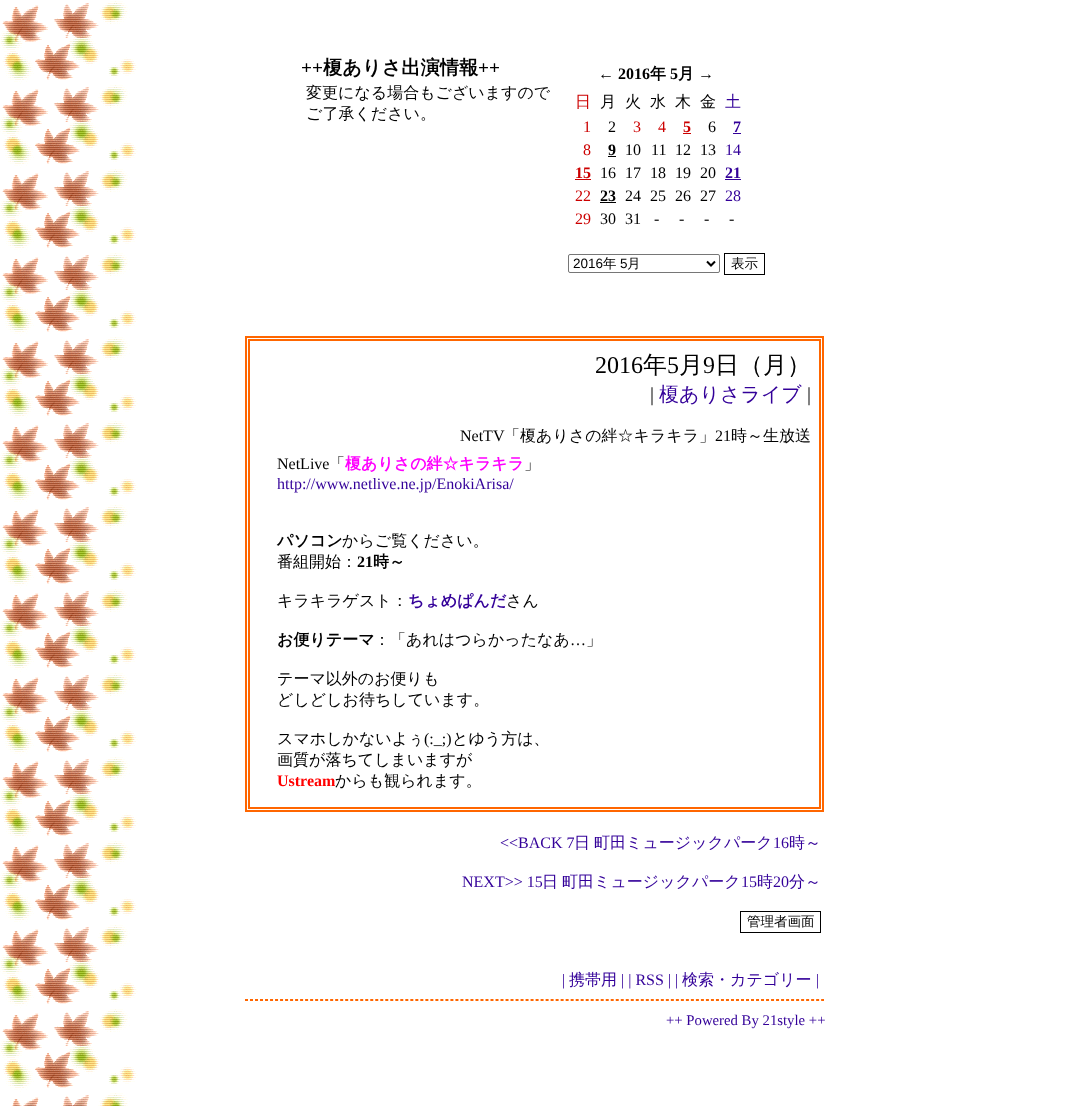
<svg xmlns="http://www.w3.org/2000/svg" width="1069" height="1106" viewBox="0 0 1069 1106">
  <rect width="100%" height="100%" fill="#ffffff"/>
  <image x="0" y="1" width="138" height="1105" href="img1.png"/>
  <text x="301" y="74" font-family="Liberation Serif" font-size="19.25" font-weight="bold" fill="#000000">++</text>
  <text x="323" y="74" font-family="WenQuanYi Zen Hei" font-size="19.25" font-weight="bold" fill="#000000">榎ありさ出演情報</text>
  <text x="478" y="74" font-family="Liberation Serif" font-size="19.25" font-weight="bold" fill="#000000">++</text>
  <text x="306" y="98" font-family="WenQuanYi Zen Hei" font-size="16" font-weight="500" fill="#000000">変更になる場合もございますので</text>
  <text x="306" y="119" font-family="WenQuanYi Zen Hei" font-size="16" font-weight="500" fill="#000000">ご了承ください。</text>
  <text x="598" y="79" font-family="Liberation Serif" font-size="16" font-weight="bold" fill="#000000">← 2016</text>
  <text x="650" y="79" font-family="WenQuanYi Zen Hei" font-size="16" font-weight="bold" fill="#000000">年</text>
  <text x="670" y="79" font-family="Liberation Serif" font-size="16" font-weight="bold" fill="#000000">5</text>
  <text x="678" y="79" font-family="WenQuanYi Zen Hei" font-size="16" font-weight="bold" fill="#000000">月</text>
  <text x="698" y="79" font-family="Liberation Serif" font-size="16" font-weight="bold" fill="#000000">→</text>
  <text x="575" y="107" font-family="WenQuanYi Zen Hei" font-size="16" font-weight="500" fill="#cc0000">日</text>
  <text x="600" y="107" font-family="WenQuanYi Zen Hei" font-size="16" font-weight="500" fill="#000000">月</text>
  <text x="625" y="107" font-family="WenQuanYi Zen Hei" font-size="16" font-weight="500" fill="#000000">火</text>
  <text x="650" y="107" font-family="WenQuanYi Zen Hei" font-size="16" font-weight="500" fill="#000000">水</text>
  <text x="675" y="107" font-family="WenQuanYi Zen Hei" font-size="16" font-weight="500" fill="#000000">木</text>
  <text x="700" y="107" font-family="WenQuanYi Zen Hei" font-size="16" font-weight="500" fill="#000000">金</text>
  <text x="725" y="107" font-family="WenQuanYi Zen Hei" font-size="16" font-weight="500" fill="#330099">土</text>
  <text x="583" y="132" font-family="Liberation Serif" font-size="16" fill="#cc0000">1</text>
  <text x="608" y="132" font-family="Liberation Serif" font-size="16" fill="#000000">2</text>
  <text x="633" y="132" font-family="Liberation Serif" font-size="16" fill="#cc0000">3</text>
  <text x="658" y="132" font-family="Liberation Serif" font-size="16" fill="#cc0000">4</text>
  <text x="683" y="132" font-family="Liberation Serif" font-size="16" font-weight="bold" fill="#cc0000">5</text>
  <rect x="683" y="133" width="8" height="1" fill="#cc0000"/>
  <text x="708" y="132" font-family="Liberation Serif" font-size="16" fill="#000000">6</text>
  <text x="733" y="132" font-family="Liberation Serif" font-size="16" font-weight="bold" fill="#330099">7</text>
  <rect x="733" y="133" width="8" height="1" fill="#330099"/>
  <text x="583" y="155" font-family="Liberation Serif" font-size="16" fill="#cc0000">8</text>
  <text x="608" y="155" font-family="Liberation Serif" font-size="16" font-weight="bold" fill="#000000">9</text>
  <rect x="608" y="156" width="8" height="1" fill="#000000"/>
  <text x="625" y="155" font-family="Liberation Serif" font-size="16" fill="#000000">10</text>
  <text x="651" y="155" font-family="Liberation Serif" font-size="16" fill="#000000">11</text>
  <text x="675" y="155" font-family="Liberation Serif" font-size="16" fill="#000000">12</text>
  <text x="700" y="155" font-family="Liberation Serif" font-size="16" fill="#000000">13</text>
  <text x="725" y="155" font-family="Liberation Serif" font-size="16" fill="#330099">14</text>
  <text x="575" y="178" font-family="Liberation Serif" font-size="16" font-weight="bold" fill="#cc0000">15</text>
  <rect x="575" y="179" width="16" height="1" fill="#cc0000"/>
  <text x="600" y="178" font-family="Liberation Serif" font-size="16" fill="#000000">16</text>
  <text x="625" y="178" font-family="Liberation Serif" font-size="16" fill="#000000">17</text>
  <text x="650" y="178" font-family="Liberation Serif" font-size="16" fill="#000000">18</text>
  <text x="675" y="178" font-family="Liberation Serif" font-size="16" fill="#000000">19</text>
  <text x="700" y="178" font-family="Liberation Serif" font-size="16" fill="#000000">20</text>
  <text x="725" y="178" font-family="Liberation Serif" font-size="16" font-weight="bold" fill="#330099">21</text>
  <rect x="725" y="179" width="16" height="1" fill="#330099"/>
  <text x="575" y="201" font-family="Liberation Serif" font-size="16" fill="#cc0000">22</text>
  <text x="600" y="201" font-family="Liberation Serif" font-size="16" font-weight="bold" fill="#000000">23</text>
  <rect x="600" y="202" width="16" height="1" fill="#000000"/>
  <text x="625" y="201" font-family="Liberation Serif" font-size="16" fill="#000000">24</text>
  <text x="650" y="201" font-family="Liberation Serif" font-size="16" fill="#000000">25</text>
  <text x="675" y="201" font-family="Liberation Serif" font-size="16" fill="#000000">26</text>
  <text x="700" y="201" font-family="Liberation Serif" font-size="16" fill="#000000">27</text>
  <text x="725" y="201" font-family="Liberation Serif" font-size="16" fill="#330099">28</text>
  <text x="575" y="224" font-family="Liberation Serif" font-size="16" fill="#cc0000">29</text>
  <text x="600" y="224" font-family="Liberation Serif" font-size="16" fill="#000000">30</text>
  <text x="625" y="224" font-family="Liberation Serif" font-size="16" fill="#000000">31</text>
  <text x="654" y="224" font-family="Liberation Serif" font-size="16" fill="#000000">-</text>
  <text x="679" y="224" font-family="Liberation Serif" font-size="16" fill="#000000">-</text>
  <text x="704" y="224" font-family="Liberation Serif" font-size="16" fill="#000000">-</text>
  <text x="729" y="224" font-family="Liberation Serif" font-size="16" fill="#000000">-</text>
  <rect x="568.5" y="254.5" width="151" height="18" rx="1.5" fill="none" stroke="#767676"/>
  <path d="M707 261.5L711 265.5L715 261.5" fill="none" stroke="#000000" stroke-width="2"/>
  <text x="573" y="268" font-family="Liberation Sans" font-size="13.5" fill="#000000">2016</text>
  <text x="603" y="268" font-family="WenQuanYi Zen Hei" font-size="13.5" font-weight="500" fill="#000000">年</text>
  <text x="620" y="268" font-family="Liberation Sans" font-size="13.5" fill="#000000">5</text>
  <text x="627" y="268" font-family="WenQuanYi Zen Hei" font-size="13.5" font-weight="500" fill="#000000">月</text>
  <rect x="724.5" y="253.5" width="40" height="21" fill="none" stroke="#000000"/>
  <text x="731" y="268" font-family="WenQuanYi Zen Hei" font-size="13.5" font-weight="500" fill="#000000">表示</text>
  <rect x="246" y="337" width="577" height="474" fill="none" stroke="#ff6600" stroke-width="2"/>
  <rect x="249" y="340" width="571" height="468" fill="none" stroke="#ff6600" stroke-width="2"/>
  <text x="595" y="373" font-family="Liberation Serif" font-size="24" fill="#000000">2016</text>
  <text x="643" y="373" font-family="WenQuanYi Zen Hei" font-size="24" font-weight="500" fill="#000000">年</text>
  <text x="667" y="373" font-family="Liberation Serif" font-size="24" fill="#000000">5</text>
  <text x="679" y="373" font-family="WenQuanYi Zen Hei" font-size="24" font-weight="500" fill="#000000">月</text>
  <text x="703" y="373" font-family="Liberation Serif" font-size="24" fill="#000000">9</text>
  <text x="715" y="373" font-family="WenQuanYi Zen Hei" font-size="24" font-weight="500" fill="#000000">日（月）</text>
  <text x="650" y="401" font-family="Liberation Serif" font-size="20" fill="#000000">|</text>
  <text x="659" y="401" font-family="WenQuanYi Zen Hei" font-size="20" font-weight="500" fill="#330099">榎ありさライブ</text>
  <text x="807" y="401" font-family="Liberation Serif" font-size="20" fill="#000000">|</text>
  <text x="460" y="441" font-family="Liberation Serif" font-size="16" fill="#000000">NetTV</text>
  <text x="504" y="441" font-family="WenQuanYi Zen Hei" font-size="16" font-weight="500" fill="#000000">「榎ありさの絆☆キラキラ」</text>
  <text x="715" y="441" font-family="Liberation Serif" font-size="16" fill="#000000">21</text>
  <text x="731" y="441" font-family="WenQuanYi Zen Hei" font-size="16" font-weight="500" fill="#000000">時～生放送</text>
  <text x="277" y="469" font-family="Liberation Serif" font-size="16" fill="#000000">NetLive</text>
  <text x="329" y="469" font-family="WenQuanYi Zen Hei" font-size="16" font-weight="500" fill="#000000">「</text>
  <text x="345" y="469" font-family="WenQuanYi Zen Hei" font-size="16" font-weight="bold" fill="#ff00ff">榎ありさの絆☆キラキラ</text>
  <text x="524" y="469" font-family="WenQuanYi Zen Hei" font-size="16" font-weight="500" fill="#000000">」</text>
  <text x="277" y="489" font-family="Liberation Serif" font-size="16" fill="#330099">http://www.netlive.ne.jp/EnokiArisa/</text>
  <text x="277" y="546" font-family="WenQuanYi Zen Hei" font-size="16" font-weight="bold" fill="#000000">パソコン</text>
  <text x="342" y="546" font-family="WenQuanYi Zen Hei" font-size="16" font-weight="500" fill="#000000">からご覧ください。</text>
  <text x="277" y="567" font-family="WenQuanYi Zen Hei" font-size="16" font-weight="500" fill="#000000">番組開始：</text>
  <text x="357" y="567" font-family="Liberation Serif" font-size="16" font-weight="bold" fill="#000000">21</text>
  <text x="373" y="567" font-family="WenQuanYi Zen Hei" font-size="16" font-weight="bold" fill="#000000">時～</text>
  <text x="277" y="606" font-family="WenQuanYi Zen Hei" font-size="16" font-weight="500" fill="#000000">キラキラゲスト：</text>
  <text x="408" y="606" font-family="WenQuanYi Zen Hei" font-size="16" font-weight="bold" fill="#330099">ちょめぱんだ</text>
  <text x="506" y="606" font-family="WenQuanYi Zen Hei" font-size="16" font-weight="500" fill="#000000">さん</text>
  <text x="277" y="645" font-family="WenQuanYi Zen Hei" font-size="16" font-weight="bold" fill="#000000">お便りテーマ</text>
  <text x="374" y="645" font-family="WenQuanYi Zen Hei" font-size="16" font-weight="500" fill="#000000">：「あれはつらかったなあ</text>
  <text x="570" y="645" font-family="Liberation Serif" font-size="16" fill="#000000">…</text>
  <text x="586" y="645" font-family="WenQuanYi Zen Hei" font-size="16" font-weight="500" fill="#000000">」</text>
  <text x="277" y="684" font-family="WenQuanYi Zen Hei" font-size="16" font-weight="500" fill="#000000">テーマ以外のお便りも</text>
  <text x="277" y="705" font-family="WenQuanYi Zen Hei" font-size="16" font-weight="500" fill="#000000">どしどしお待ちしています。</text>
  <text x="277" y="744" font-family="WenQuanYi Zen Hei" font-size="16" font-weight="500" fill="#000000">スマホしかないよぅ</text>
  <text x="424" y="744" font-family="Liberation Serif" font-size="16" fill="#000000">(:_;)</text>
  <text x="452" y="744" font-family="WenQuanYi Zen Hei" font-size="16" font-weight="500" fill="#000000">とゆう方は、</text>
  <text x="277" y="765" font-family="WenQuanYi Zen Hei" font-size="16" font-weight="500" fill="#000000">画質が落ちてしまいますが</text>
  <text x="277" y="786" font-family="Liberation Serif" font-size="16" font-weight="bold" fill="#ff0000">Ustream</text>
  <text x="335" y="786" font-family="WenQuanYi Zen Hei" font-size="16" font-weight="500" fill="#000000">からも観られます。</text>
  <text x="500" y="848" font-family="Liberation Serif" font-size="16" fill="#330099">&lt;&lt;BACK 7</text>
  <text x="574" y="848" font-family="WenQuanYi Zen Hei" font-size="16" font-weight="500" fill="#330099">日</text>
  <text x="594" y="848" font-family="WenQuanYi Zen Hei" font-size="16" font-weight="500" fill="#330099">町田ミュージックパーク</text>
  <text x="773" y="848" font-family="Liberation Serif" font-size="16" fill="#330099">16</text>
  <text x="789" y="848" font-family="WenQuanYi Zen Hei" font-size="16" font-weight="500" fill="#330099">時～</text>
  <text x="462" y="887" font-family="Liberation Serif" font-size="16" fill="#330099">NEXT&gt;&gt; 15</text>
  <text x="542" y="887" font-family="WenQuanYi Zen Hei" font-size="16" font-weight="500" fill="#330099">日</text>
  <text x="562" y="887" font-family="WenQuanYi Zen Hei" font-size="16" font-weight="500" fill="#330099">町田ミュージックパーク</text>
  <text x="741" y="887" font-family="Liberation Serif" font-size="16" fill="#330099">15</text>
  <text x="757" y="887" font-family="WenQuanYi Zen Hei" font-size="16" font-weight="500" fill="#330099">時</text>
  <text x="773" y="887" font-family="Liberation Serif" font-size="16" fill="#330099">20</text>
  <text x="789" y="887" font-family="WenQuanYi Zen Hei" font-size="16" font-weight="500" fill="#330099">分～</text>
  <rect x="740.5" y="911.5" width="80" height="21" fill="none" stroke="#000000"/>
  <text x="747" y="926" font-family="WenQuanYi Zen Hei" font-size="13.5" font-weight="500" fill="#000000">管理者画面</text>
  <text x="562" y="985" font-family="Liberation Serif" font-size="16" fill="#330099">|</text>
  <text x="569" y="985" font-family="WenQuanYi Zen Hei" font-size="16" font-weight="500" fill="#330099">携帯用</text>
  <text x="621" y="985" font-family="Liberation Serif" font-size="16" fill="#330099">| | RSS | |</text>
  <text x="682" y="985" font-family="WenQuanYi Zen Hei" font-size="16" font-weight="500" fill="#330099">検索・カテゴリー</text>
  <text x="816" y="985" font-family="Liberation Serif" font-size="16" fill="#330099">|</text>
  <path d="M245 999.5H824" fill="none" stroke="#ff6600" stroke-dasharray="3 2.01"/>
  <rect x="823" y="999" width="1" height="2" fill="#ff6600"/>
  <path d="M245 1000.5H824" fill="none" stroke="#ff6600" stroke-dasharray="3 2.01"/>
  <text x="666" y="1025" font-family="Liberation Serif" font-size="14.75" fill="#330099">++ Powered By 21style ++</text>
</svg>
